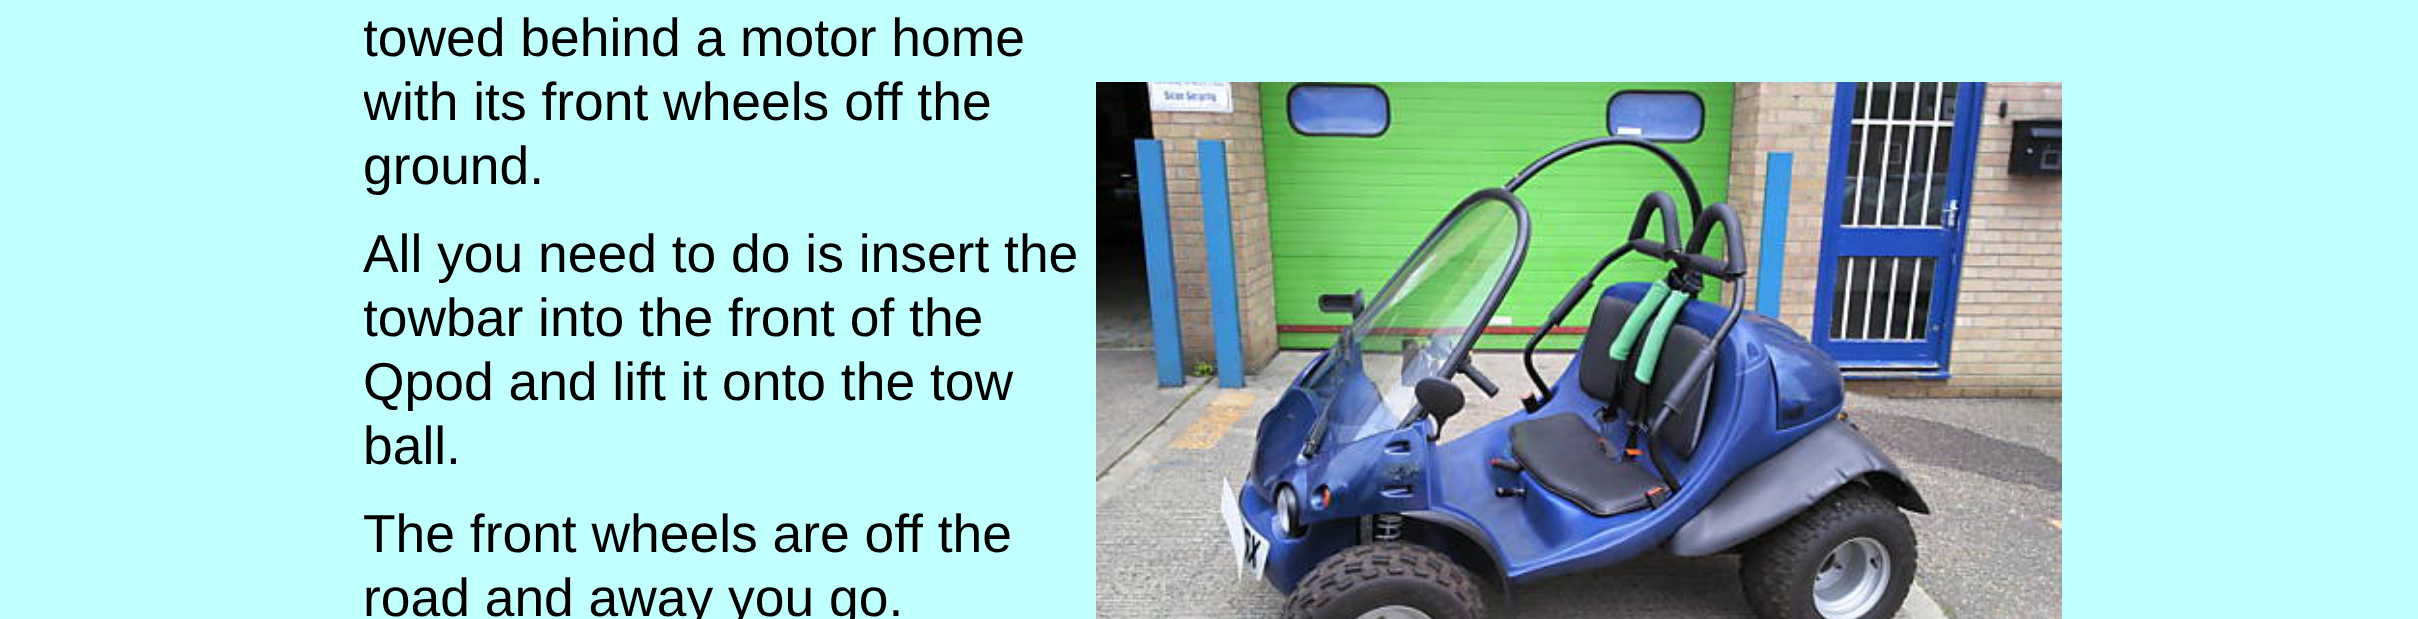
<svg xmlns="http://www.w3.org/2000/svg" width="2418" height="619" viewBox="0 0 2418 619">
  <defs>
    <clipPath id="clip1"><rect x="364" y="0" width="1710" height="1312"/></clipPath>
  </defs>
  <rect width="100%" height="100%" fill="#c1fffe"/>
  <g clip-path="url(#clip1)">
    <text x="363" y="56" font-family="Liberation Sans" font-size="53.4" fill="#000000">towed behind a motor home</text>
    <text x="363" y="120" font-family="Liberation Sans" font-size="53.4" fill="#000000">w</text>
  </g>
  <text x="402" y="120" font-family="Liberation Sans" font-size="53.4" fill="#000000">ith its front wheels off the</text>
  <image x="1096" y="82" width="966" height="537" href="img1.png"/>
  <text x="363" y="184" font-family="Liberation Sans" font-size="53.4" fill="#000000">ground.</text>
  <text x="363" y="272" font-family="Liberation Sans" font-size="53.4" fill="#000000">All you need to do is insert the</text>
  <g clip-path="url(#clip1)">
    <text x="363" y="336" font-family="Liberation Sans" font-size="53.4" fill="#000000">towbar into the front of the</text>
  </g>
  <text x="363" y="400" font-family="Liberation Sans" font-size="53.4" fill="#000000">Qpod and lift it onto the tow</text>
  <text x="363" y="464" font-family="Liberation Sans" font-size="53.4" fill="#000000">ball.</text>
  <text x="363" y="552" font-family="Liberation Sans" font-size="53.4" fill="#000000">The front wheels are off the</text>
  <text x="363" y="616" font-family="Liberation Sans" font-size="53.4" fill="#000000">road and away you go.</text>
</svg>
